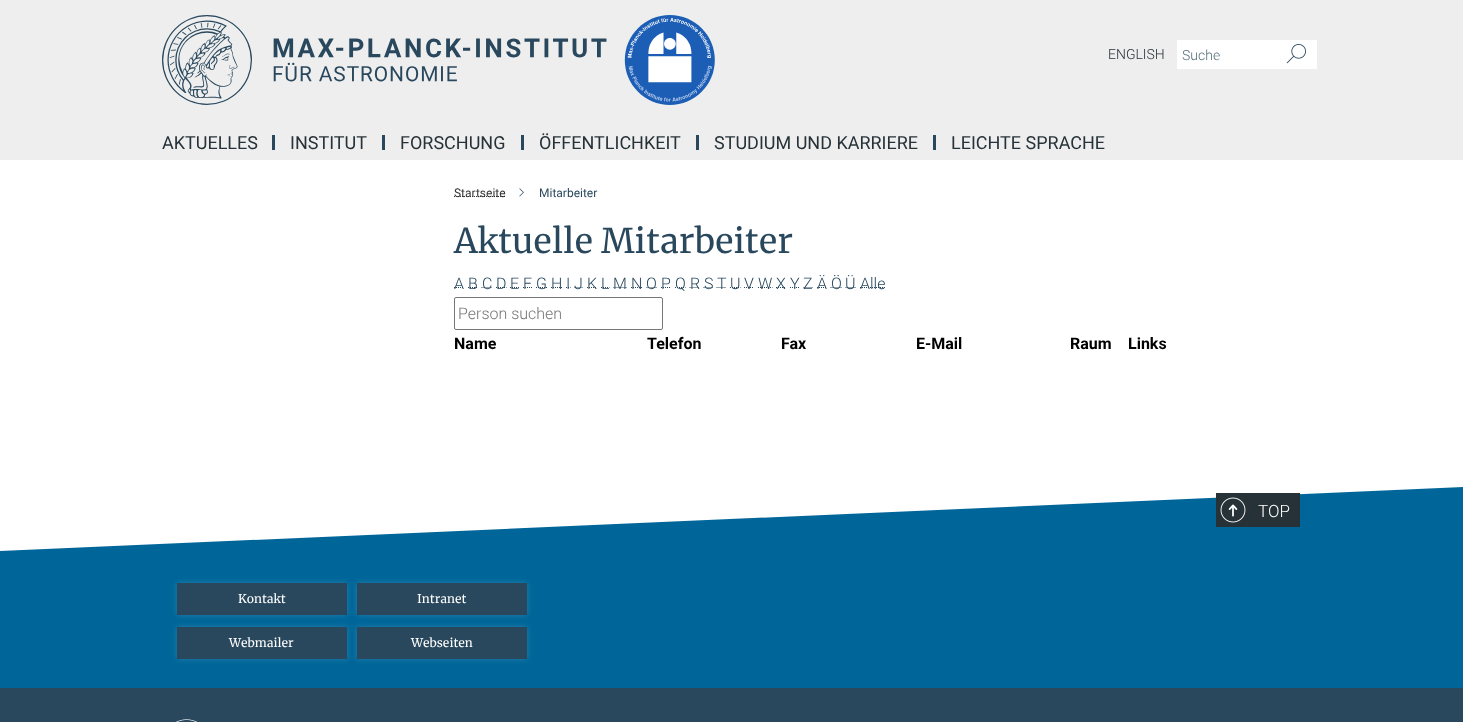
<svg xmlns="http://www.w3.org/2000/svg" width="1463" height="722" viewBox="0 0 1463 722">
  <defs>
    <filter id="blur1" x="-50%" y="-200%" width="200%" height="500%"><feGaussianBlur stdDeviation="2.5"/></filter>
  </defs>
  <rect width="100%" height="100%" fill="#ffffff"/>
  <rect x="0" y="0" width="1463" height="160" fill="#eeeeee"/>
  <image x="162" y="15" width="553" height="90" href="img1.png"/>
  <text x="1108" y="59" font-family="Roboto" font-size="14" font-weight="300" fill="#263238">ENGLISH</text>
  <rect x="1177" y="40" width="140" height="29" fill="#ffffff"/>
  <text x="1182" y="60" font-family="Roboto" font-size="14" font-weight="300" fill="#546e7a">Suche</text>
  <image x="1286" y="44" width="20" height="20" href="img2.png"/>
  <rect x="272" y="135" width="3" height="15" fill="#29485d"/>
  <text x="162" y="149" font-family="Roboto" font-size="18" fill="#263238">AKTUELLES</text>
  <rect x="382" y="135" width="3" height="15" fill="#29485d"/>
  <text x="290" y="149" font-family="Roboto" font-size="18" fill="#263238">INSTITUT</text>
  <rect x="521" y="135" width="3" height="15" fill="#29485d"/>
  <text x="400" y="149" font-family="Roboto" font-size="18" fill="#263238">FORSCHUNG</text>
  <rect x="696" y="135" width="3" height="15" fill="#29485d"/>
  <text x="539" y="149" font-family="Roboto" font-size="18" fill="#263238">ÖFFENTLICHKEIT</text>
  <rect x="933" y="135" width="3" height="15" fill="#29485d"/>
  <text x="714" y="149" font-family="Roboto" font-size="18" fill="#263238">STUDIUM UND KARRIERE</text>
  <text x="951" y="149" font-family="Roboto" font-size="18" fill="#263238">LEICHTE SPRACHE</text>
  <path d="M454 196.5H505.5" fill="none" stroke="#333333" stroke-dasharray="1 1"/>
  <text x="454" y="197" font-family="Roboto" font-size="12" fill="#333333">Startseite</text>
  <image x="519" y="188" width="5" height="9" href="img3.png"/>
  <text x="539" y="197" font-family="Roboto" font-size="12" fill="#29485d">Mitarbeiter</text>
  <text x="454" y="253" font-family="Merriweather" font-size="34" fill="#29485d">Aktuelle Mitarbeiter</text>
  <path d="M454 287.5H464" fill="none" stroke="#29485d" stroke-dasharray="1 1"/>
  <text x="454" y="289" font-family="Roboto" font-size="16" font-weight="300" fill="#29485d">A</text>
  <path d="M468 287.5H477.5" fill="none" stroke="#29485d" stroke-dasharray="1 1"/>
  <text x="468" y="289" font-family="Roboto" font-size="16" font-weight="300" fill="#29485d">B</text>
  <path d="M481.5 287.5H492" fill="none" stroke="#29485d" stroke-dasharray="1 1"/>
  <text x="482" y="289" font-family="Roboto" font-size="16" font-weight="300" fill="#29485d">C</text>
  <path d="M496 287.5H506.5" fill="none" stroke="#29485d" stroke-dasharray="1 1"/>
  <text x="496" y="289" font-family="Roboto" font-size="16" font-weight="300" fill="#29485d">D</text>
  <path d="M510 287.5H519.5" fill="none" stroke="#29485d" stroke-dasharray="1 1"/>
  <text x="510" y="289" font-family="Roboto" font-size="16" font-weight="300" fill="#29485d">E</text>
  <path d="M523 287.5H532" fill="none" stroke="#29485d" stroke-dasharray="1 1"/>
  <text x="523" y="289" font-family="Roboto" font-size="16" font-weight="300" fill="#29485d">F</text>
  <path d="M536 287.5H547" fill="none" stroke="#29485d" stroke-dasharray="1 1"/>
  <text x="536" y="289" font-family="Roboto" font-size="16" font-weight="300" fill="#29485d">G</text>
  <path d="M551 287.5H562.5" fill="none" stroke="#29485d" stroke-dasharray="1 1"/>
  <text x="551" y="289" font-family="Roboto" font-size="16" font-weight="300" fill="#29485d">H</text>
  <path d="M566 287.5H567M568 287.5H569M570 287.5H570.5" fill="none" stroke="#29485d"/>
  <text x="566" y="289" font-family="Roboto" font-size="16" font-weight="300" fill="#29485d">I</text>
  <path d="M574.5 287.5H583" fill="none" stroke="#29485d" stroke-dasharray="1 1"/>
  <text x="574" y="289" font-family="Roboto" font-size="16" font-weight="300" fill="#29485d">J</text>
  <path d="M587 287.5H597" fill="none" stroke="#29485d" stroke-dasharray="1 1"/>
  <text x="587" y="289" font-family="Roboto" font-size="16" font-weight="300" fill="#29485d">K</text>
  <path d="M601 287.5H609.5" fill="none" stroke="#29485d" stroke-dasharray="1 1"/>
  <text x="601" y="289" font-family="Roboto" font-size="16" font-weight="300" fill="#29485d">L</text>
  <path d="M613.5 287.5H627" fill="none" stroke="#29485d" stroke-dasharray="1 1"/>
  <text x="613" y="289" font-family="Roboto" font-size="16" font-weight="300" fill="#29485d">M</text>
  <path d="M631 287.5H642.5" fill="none" stroke="#29485d" stroke-dasharray="1 1"/>
  <text x="631" y="289" font-family="Roboto" font-size="16" font-weight="300" fill="#29485d">N</text>
  <path d="M646.5 287.5H657" fill="none" stroke="#29485d" stroke-dasharray="1 1"/>
  <text x="646" y="289" font-family="Roboto" font-size="16" font-weight="300" fill="#29485d">O</text>
  <path d="M661 287.5H671" fill="none" stroke="#29485d" stroke-dasharray="1 1"/>
  <text x="661" y="289" font-family="Roboto" font-size="16" font-weight="300" fill="#29485d">P</text>
  <path d="M675 287.5H685.5" fill="none" stroke="#29485d" stroke-dasharray="1 1"/>
  <text x="675" y="289" font-family="Roboto" font-size="16" font-weight="300" fill="#29485d">Q</text>
  <path d="M689.5 287.5H699.5" fill="none" stroke="#29485d" stroke-dasharray="1 1"/>
  <text x="690" y="289" font-family="Roboto" font-size="16" font-weight="300" fill="#29485d">R</text>
  <path d="M703.5 287.5H713" fill="none" stroke="#29485d" stroke-dasharray="1 1"/>
  <text x="704" y="289" font-family="Roboto" font-size="16" font-weight="300" fill="#29485d">S</text>
  <path d="M716.5 287.5H726" fill="none" stroke="#29485d" stroke-dasharray="1 1"/>
  <text x="717" y="289" font-family="Roboto" font-size="16" font-weight="300" fill="#29485d">T</text>
  <path d="M730 287.5H740.5" fill="none" stroke="#29485d" stroke-dasharray="1 1"/>
  <text x="730" y="289" font-family="Roboto" font-size="16" font-weight="300" fill="#29485d">U</text>
  <path d="M744 287.5H754" fill="none" stroke="#29485d" stroke-dasharray="1 1"/>
  <text x="744" y="289" font-family="Roboto" font-size="16" font-weight="300" fill="#29485d">V</text>
  <path d="M758 287.5H772.5" fill="none" stroke="#29485d" stroke-dasharray="1 1"/>
  <text x="758" y="289" font-family="Roboto" font-size="16" font-weight="300" fill="#29485d">W</text>
  <path d="M776 287.5H786" fill="none" stroke="#29485d" stroke-dasharray="1 1"/>
  <text x="776" y="289" font-family="Roboto" font-size="16" font-weight="300" fill="#29485d">X</text>
  <path d="M790 287.5H799.5" fill="none" stroke="#29485d" stroke-dasharray="1 1"/>
  <text x="790" y="289" font-family="Roboto" font-size="16" font-weight="300" fill="#29485d">Y</text>
  <path d="M803.5 287.5H813" fill="none" stroke="#29485d" stroke-dasharray="1 1"/>
  <text x="803" y="289" font-family="Roboto" font-size="16" font-weight="300" fill="#29485d">Z</text>
  <path d="M817 287.5H827" fill="none" stroke="#29485d" stroke-dasharray="1 1"/>
  <text x="817" y="289" font-family="Roboto" font-size="16" font-weight="300" fill="#29485d">Ä</text>
  <path d="M830.5 287.5H841.5" fill="none" stroke="#29485d" stroke-dasharray="1 1"/>
  <text x="831" y="289" font-family="Roboto" font-size="16" font-weight="300" fill="#29485d">Ö</text>
  <path d="M845.5 287.5H856" fill="none" stroke="#29485d" stroke-dasharray="1 1"/>
  <text x="845" y="289" font-family="Roboto" font-size="16" font-weight="300" fill="#29485d">Ü</text>
  <path d="M860 287.5H885.5" fill="none" stroke="#29485d" stroke-dasharray="1 1"/>
  <text x="860" y="289" font-family="Roboto" font-size="16" font-weight="300" fill="#29485d">Alle</text>
  <rect x="454.5" y="297.5" width="208" height="32" rx="1.5" fill="none" stroke="#767676"/>
  <text x="458" y="319" font-family="Roboto" font-size="16" font-weight="300" fill="#757575">Person suchen</text>
  <text x="454" y="349" font-family="Roboto" font-size="16" font-weight="bold" fill="#000000">Name</text>
  <text x="647" y="349" font-family="Roboto" font-size="16" font-weight="bold" fill="#000000">Telefon</text>
  <text x="781" y="349" font-family="Roboto" font-size="16" font-weight="bold" fill="#000000">Fax</text>
  <text x="916" y="349" font-family="Roboto" font-size="16" font-weight="bold" fill="#000000">E-Mail</text>
  <text x="1070" y="349" font-family="Roboto" font-size="16" font-weight="bold" fill="#000000">Raum</text>
  <text x="1128" y="349" font-family="Roboto" font-size="16" font-weight="bold" fill="#000000">Links</text>
  <rect x="0" y="557" width="1463" height="131" fill="#006699"/>
  <path d="M0 551L1463 487V557H0" fill="#006699"/>
  <rect x="1216" y="493" width="84" height="34" fill="#263238"/>
  <image x="1228" y="504" width="10" height="13" href="img4.png"/>
  <image x="1220" y="497" width="26" height="26" href="img5.png"/>
  <text x="1258" y="517" font-family="Roboto" font-size="17" font-weight="300" fill="#ffffff">TOP</text>
  <rect x="177" y="583" width="170" height="32" fill="#ffffff" fill-opacity="0.15" filter="url(#blur1)"/>
  <rect x="177" y="583" width="170" height="32" fill="#29485d"/>
  <text x="238" y="603" font-family="Merriweather" font-size="12" fill="#ffffff">Kontakt</text>
  <rect x="357" y="583" width="170" height="32" fill="#ffffff" fill-opacity="0.15" filter="url(#blur1)"/>
  <rect x="357" y="583" width="170" height="32" fill="#29485d"/>
  <text x="417" y="603" font-family="Merriweather" font-size="12" fill="#ffffff">Intranet</text>
  <rect x="177" y="627" width="170" height="32" fill="#ffffff" fill-opacity="0.15" filter="url(#blur1)"/>
  <rect x="177" y="627" width="170" height="32" fill="#29485d"/>
  <text x="229" y="647" font-family="Merriweather" font-size="12" fill="#ffffff">Webmailer</text>
  <rect x="357" y="627" width="170" height="32" fill="#ffffff" fill-opacity="0.15" filter="url(#blur1)"/>
  <rect x="357" y="627" width="170" height="32" fill="#29485d"/>
  <text x="411" y="647" font-family="Merriweather" font-size="12" fill="#ffffff">Webseiten</text>
  <rect x="0" y="688" width="1463" height="34" fill="#29485d"/>
  <image x="176" y="719" width="21" height="3" href="img6.png"/>
</svg>
